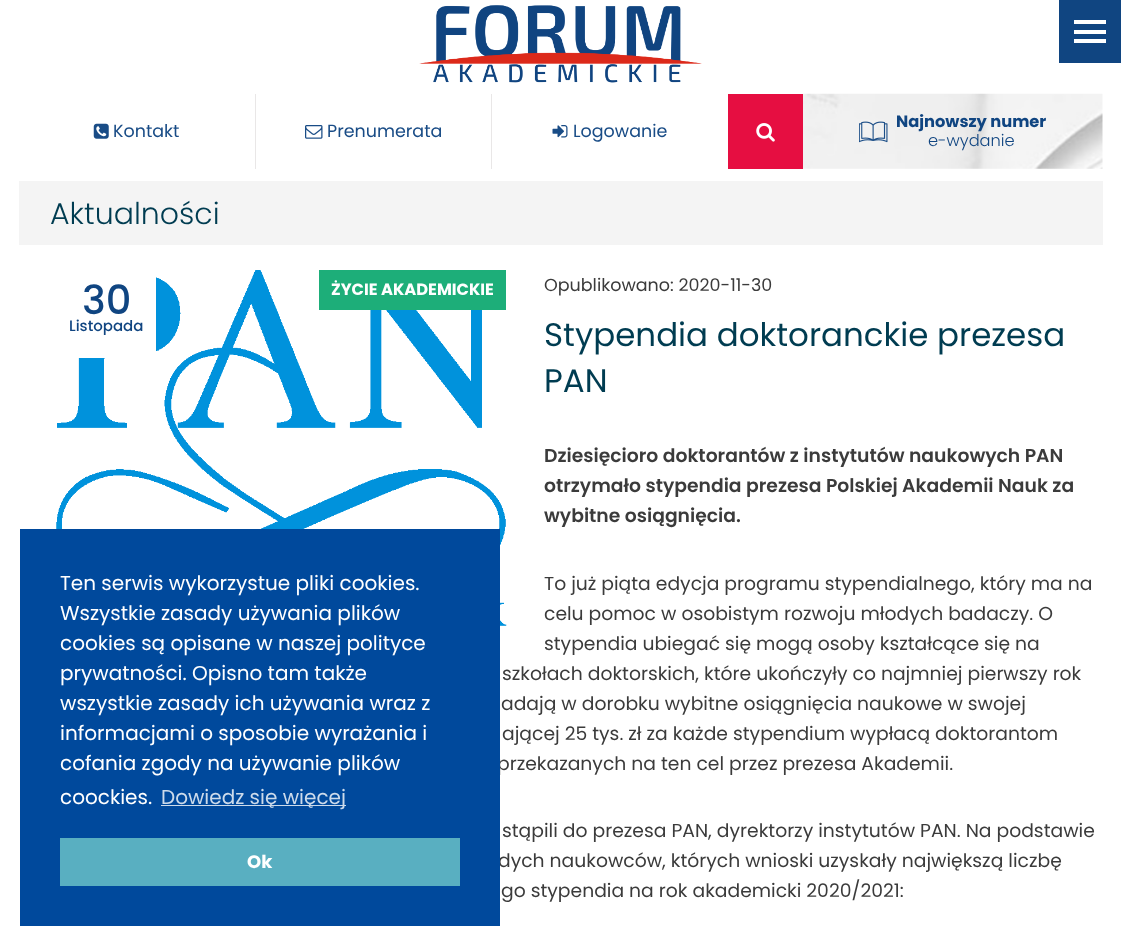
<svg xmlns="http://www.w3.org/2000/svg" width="1121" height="946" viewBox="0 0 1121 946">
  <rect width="100%" height="100%" fill="#ffffff"/>
  <rect x="1059" y="0" width="62" height="63" fill="#104581"/>
  <rect x="1074" y="20" width="32" height="4" fill="#ffffff"/>
  <rect x="1074" y="30" width="32" height="4" fill="#ffffff"/>
  <rect x="1074" y="39" width="32" height="4" fill="#ffffff"/>
  <image x="419" y="5" width="283" height="78" href="img1.png"/>
  <image x="93" y="123" width="16" height="16" href="img2.png"/>
  <text x="113" y="137" font-family="Poppins" font-size="17.5" fill="#194c86">Kontakt</text>
  <rect x="255" y="94" width="1" height="75" fill="#e9e7e7"/>
  <image x="305" y="125" width="18" height="14" href="img3.png"/>
  <text x="327" y="137" font-family="Poppins" font-size="17.5" fill="#194c86">Prenumerata</text>
  <rect x="491" y="94" width="1" height="75" fill="#e9e7e7"/>
  <image x="552" y="125" width="16" height="13" href="img4.png"/>
  <text x="573" y="137" font-family="Poppins" font-size="17.5" fill="#194c86">Logowanie</text>
  <image x="802" y="93" width="301" height="76" href="img6.png"/>
  <rect x="728" y="94" width="75" height="75" fill="#e60e41"/>
  <image x="756" y="123" width="19" height="19" href="img5.png"/>
  <image x="859" y="121" width="29" height="22" href="img7.png"/>
  <text x="896" y="127" font-family="Poppins" font-size="16.25" font-weight="bold" fill="#104581">Najnowszy numer</text>
  <text x="928" y="146" font-family="Poppins" font-size="16.25" font-weight="300" fill="#104581">e-wydanie</text>
  <rect x="19" y="181" width="1084" height="64" fill="#f4f4f4"/>
  <text x="50" y="224" font-family="Poppins" font-size="30" font-weight="300" fill="#003c51">Aktualności</text>
  <image x="56" y="270" width="451" height="356" href="img8.png"/>
  <rect x="57" y="272" width="99" height="86" fill="#ffffff"/>
  <text x="82" y="314" font-family="Poppins" font-size="40" font-weight="500" fill="#104581">30</text>
  <text x="69" y="331" font-family="Poppins" font-size="15" font-weight="500" fill="#104581">Listopada</text>
  <rect x="319" y="270" width="187" height="40" fill="#1dae79"/>
  <text x="331" y="295" font-family="Poppins" font-size="16.25" font-weight="bold" fill="#ffffff">ŻYCIE AKADEMICKIE</text>
  <text x="544" y="291" font-family="Poppins" font-size="17.5" fill="#3b3b3b">Opublikowano: 2020-11-30</text>
  <text x="544" y="346" font-family="Poppins" font-size="32.5" fill="#003c51">Stypendia doktoranckie prezesa</text>
  <text x="544" y="392" font-family="Poppins" font-size="32.5" fill="#003c51">PAN</text>
  <text x="544" y="462" font-family="Poppins" font-size="18.75" font-weight="600" fill="#3b3b3b">Dziesięcioro doktorantów z instytutów naukowych PAN</text>
  <text x="544" y="492" font-family="Poppins" font-size="18.75" font-weight="600" fill="#3b3b3b">otrzymało stypendia prezesa Polskiej Akademii Nauk za</text>
  <text x="544" y="522" font-family="Poppins" font-size="18.75" font-weight="600" fill="#3b3b3b">wybitne osiągnięcia.</text>
  <text x="544" y="590" font-family="Poppins" font-size="18.75" fill="#3b3b3b">To już piąta edycja programu stypendialnego, który ma na</text>
  <text x="544" y="620" font-family="Poppins" font-size="18.75" fill="#3b3b3b">celu pomoc w osobistym rozwoju młodych badaczy. O</text>
  <text x="544" y="650" font-family="Poppins" font-size="18.75" fill="#3b3b3b">stypendia ubiegać się mogą osoby kształcące się na</text>
  <text x="502" y="680" font-family="Poppins" font-size="18.75" fill="#3b3b3b">szkołach doktorskich, które ukończyły co najmniej pierwszy rok</text>
  <text x="501" y="710" font-family="Poppins" font-size="18.75" fill="#3b3b3b">adają w dorobku wybitne osiągnięcia naukowe w swojej</text>
  <text x="502" y="740" font-family="Poppins" font-size="18.75" fill="#3b3b3b">ającej 25 tys. zł za każde stypendium wypłacą doktorantom</text>
  <text x="497" y="770" font-family="Poppins" font-size="18.75" fill="#3b3b3b">przekazanych na ten cel przez prezesa Akademii.</text>
  <text x="502" y="837" font-family="Poppins" font-size="18.75" fill="#3b3b3b">stąpili do prezesa PAN, dyrektorzy instytutów PAN. Na podstawie</text>
  <text x="498" y="867" font-family="Poppins" font-size="18.75" fill="#3b3b3b">dych naukowców, których wnioski uzyskały największą liczbę</text>
  <text x="501" y="897" font-family="Poppins" font-size="18.75" fill="#3b3b3b">go stypendia na rok akademicki 2020/2021:</text>
  <rect x="20" y="529" width="480" height="397" fill="#00499c"/>
  <text x="60" y="590" font-family="Poppins" font-size="20" fill="#ffffff">Ten serwis wykorzystue pliki cookies.</text>
  <text x="60" y="620" font-family="Poppins" font-size="20" fill="#ffffff">Wszystkie zasady używania plików</text>
  <text x="60" y="650" font-family="Poppins" font-size="20" fill="#ffffff">cookies są opisane w naszej polityce</text>
  <text x="60" y="680" font-family="Poppins" font-size="20" fill="#ffffff">prywatności. Opisno tam także</text>
  <text x="60" y="710" font-family="Poppins" font-size="20" fill="#ffffff">wszystkie zasady ich używania wraz z</text>
  <text x="60" y="740" font-family="Poppins" font-size="20" fill="#ffffff">informacjami o sposobie wyrażania i</text>
  <text x="60" y="770" font-family="Poppins" font-size="20" fill="#ffffff">cofania zgody na używanie plików</text>
  <text x="60" y="804" font-family="Poppins" font-size="20" fill="#ffffff">coockies.</text>
  <rect x="161" y="805" width="185" height="1" fill="#ccdbeb"/>
  <text x="161" y="804" font-family="Poppins" font-size="20" fill="#ccdbeb">Dowiedz się więcej</text>
  <rect x="60" y="838" width="400" height="48" fill="#59afc1"/>
  <text x="247" y="868" font-family="Poppins" font-size="18" font-weight="bold" fill="#ffffff">Ok</text>
</svg>
